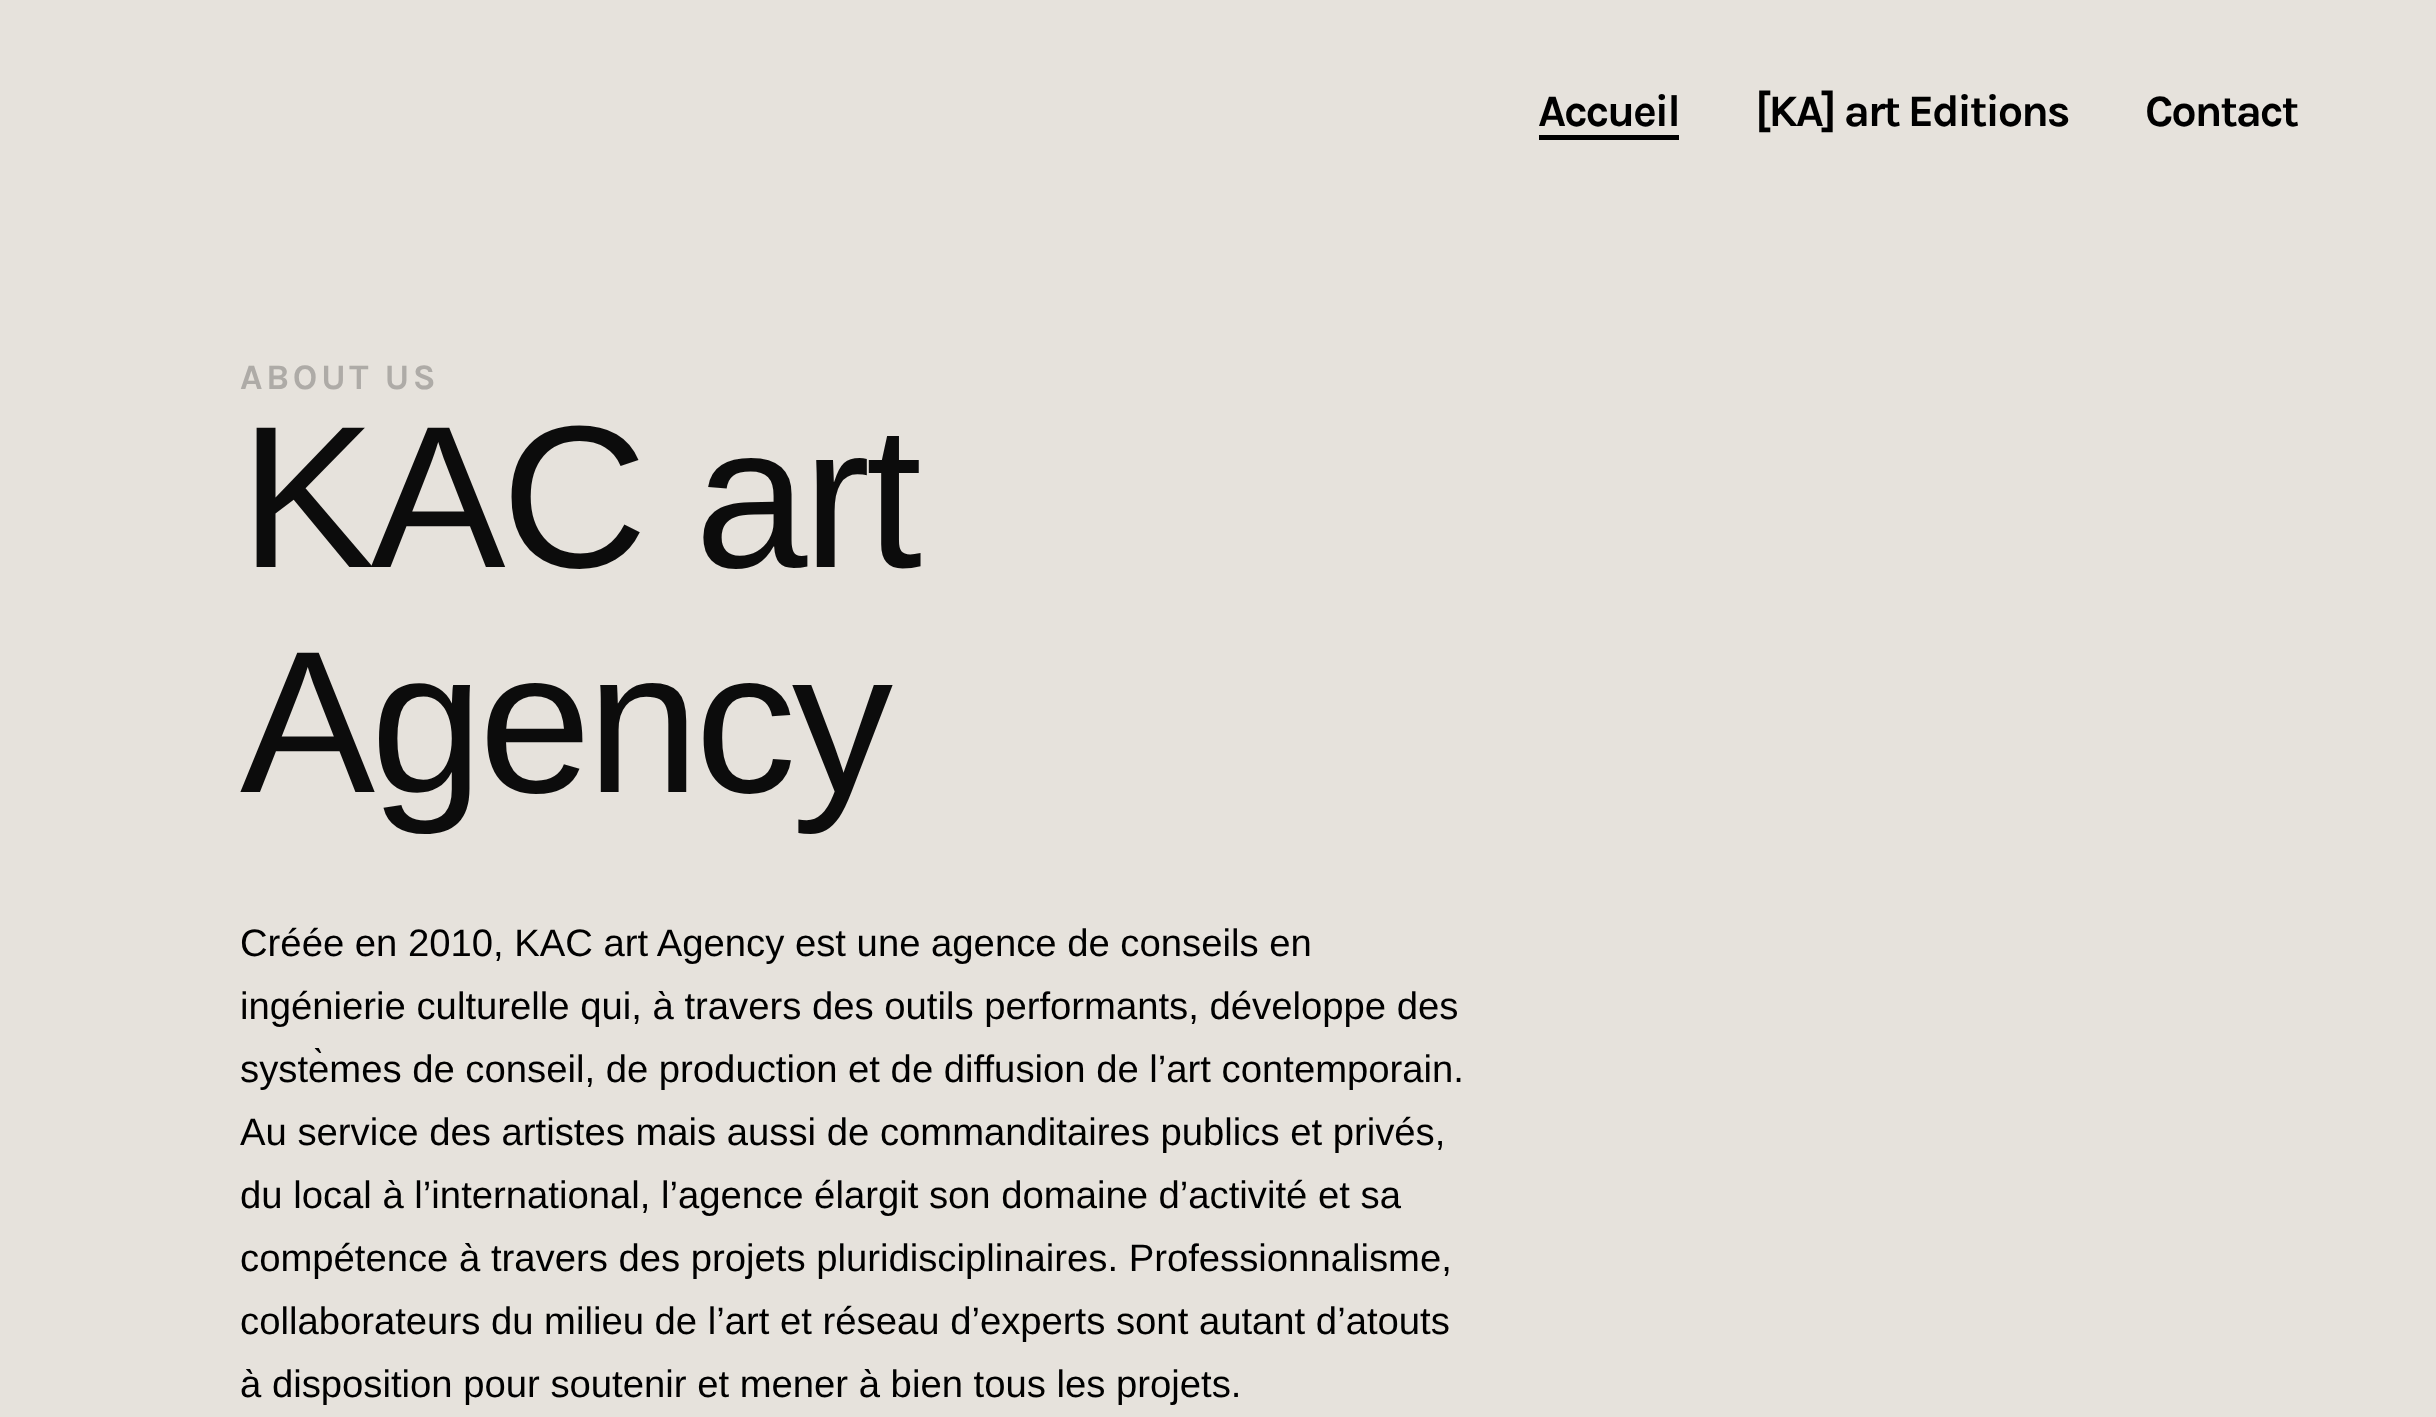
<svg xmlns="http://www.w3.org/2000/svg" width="2436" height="1417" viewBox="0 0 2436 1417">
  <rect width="100%" height="100%" fill="#e6e2dc"/>
  <text x="1538" y="126" font-family="Karla" font-size="45" font-weight="bold" letter-spacing="-2.25" fill="#000000">Accueil</text>
  <rect x="1539" y="135" width="140" height="5" fill="#000000"/>
  <text x="1755" y="126" font-family="Karla" font-size="45" font-weight="bold" letter-spacing="-2.25" fill="#000000">[KA] art Editions</text>
  <text x="2145" y="126" font-family="Karla" font-size="45" font-weight="bold" letter-spacing="-2.25" fill="#000000">Contact</text>
  <text x="240" y="389" font-family="Karla" font-size="36" font-weight="bold" letter-spacing="3.5" fill="#aeaba7">ABOUT US</text>
  <text x="240" y="567" font-family="Liberation Sans" font-size="202.5" letter-spacing="-4.5" fill="#0c0c0c">KAC art</text>
  <text x="240" y="792" font-family="Liberation Sans" font-size="202.5" letter-spacing="-4.5" fill="#0c0c0c">Agency</text>
  <text x="240" y="956" font-family="Liberation Sans" font-size="38.25" fill="#000000">Créée en 2010, KAC art Agency est une agence de conseils en</text>
  <text x="240" y="1019" font-family="Liberation Sans" font-size="38.25" fill="#000000">ingénierie culturelle qui, à travers des outils performants, développe des</text>
  <text x="240" y="1082" font-family="Liberation Sans" font-size="38.25" fill="#000000">systèmes de conseil, de production et de diffusion de l’art contemporain.</text>
  <text x="240" y="1145" font-family="Liberation Sans" font-size="38.25" fill="#000000">Au service des artistes mais aussi de commanditaires publics et privés,</text>
  <text x="240" y="1208" font-family="Liberation Sans" font-size="38.25" fill="#000000">du local à l’international, l’agence élargit son domaine d’activité et sa</text>
  <text x="240" y="1271" font-family="Liberation Sans" font-size="38.25" fill="#000000">compétence à travers des projets pluridisciplinaires. Professionnalisme,</text>
  <text x="240" y="1334" font-family="Liberation Sans" font-size="38.25" fill="#000000">collaborateurs du milieu de l’art et réseau d’experts sont autant d’atouts</text>
  <text x="240" y="1397" font-family="Liberation Sans" font-size="38.25" fill="#000000">à disposition pour soutenir et mener à bien tous les projets.</text>
</svg>
